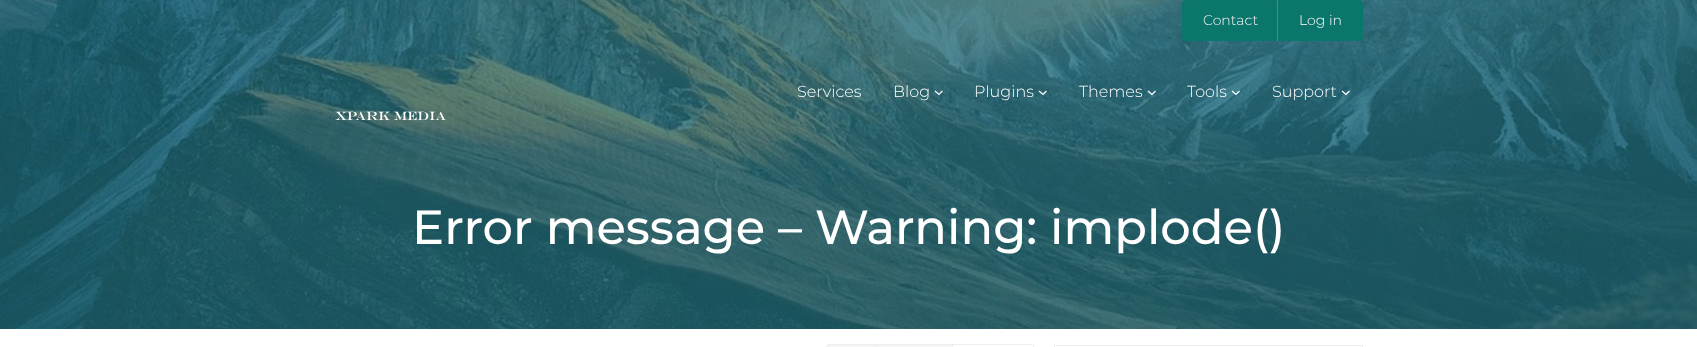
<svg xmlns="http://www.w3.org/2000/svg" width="1697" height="347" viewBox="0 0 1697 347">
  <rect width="100%" height="100%" fill="#ffffff"/>
  <image x="0" y="0" width="1697" height="329" href="img1.png"/>
  <rect x="1182" y="0" width="96" height="41" rx="4" fill="#0b766c"/>
  <text x="1203" y="25" font-family="Montserrat" font-size="14" font-weight="300" fill="#f6f6f6">Contact</text>
  <path d="M1277 0H1359C1361 0 1363 2 1363 4V37C1363 39 1361 41 1359 41H1277Z" fill="#0b766c"/>
  <rect x="1277" y="0" width="1" height="41" fill="#0fa597"/>
  <text x="1299" y="25" font-family="Montserrat" font-size="14" font-weight="300" fill="#ffffff">Log in</text>
  <text x="797" y="97" font-family="Montserrat" font-size="16" font-weight="300" fill="#ffffff">Services</text>
  <text x="893" y="97" font-family="Montserrat" font-size="16" font-weight="300" fill="#ffffff">Blog</text>
  <path d="M935 91L939 94.5L942.5 91" fill="none" stroke="#ffffff" stroke-width="1.2"/>
  <text x="974" y="97" font-family="Montserrat" font-size="16" font-weight="300" fill="#ffffff">Plugins</text>
  <path d="M1039 91L1043 94.5L1046.5 91" fill="none" stroke="#ffffff" stroke-width="1.2"/>
  <text x="1079" y="97" font-family="Montserrat" font-size="16" font-weight="300" fill="#ffffff">Themes</text>
  <path d="M1148 91L1152 94.5L1155.5 91" fill="none" stroke="#ffffff" stroke-width="1.2"/>
  <text x="1187" y="97" font-family="Montserrat" font-size="16" font-weight="300" fill="#ffffff">Tools</text>
  <path d="M1232 91L1236 94.5L1239.5 91" fill="none" stroke="#ffffff" stroke-width="1.2"/>
  <text x="1272" y="97" font-family="Montserrat" font-size="16" font-weight="300" fill="#ffffff">Support</text>
  <path d="M1342 91L1346 94.5L1349.5 91" fill="none" stroke="#ffffff" stroke-width="1.2"/>
  <text x="335" y="120" font-family="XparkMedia" font-size="12" font-weight="500" fill="#ffffff">Xpark Media</text>
  <text x="412" y="244" font-family="Montserrat" font-size="48" font-weight="500" fill="#ffffff">Error message – Warning: implode()</text>
  <path d="M829 344.5H877C878.5 344.5 879.5 345.5 879.5 347V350.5H826.5V347C826.5 345.5 827.5 344.5 829 344.5Z" fill="#f5f5f5" stroke="#eeeeee"/>
  <path d="M878 344.5H954C955.5 344.5 956.5 345.5 956.5 347V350.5H875.5V347C875.5 345.5 876.5 344.5 878 344.5Z" fill="#f5f5f5" stroke="#eeeeee"/>
  <path d="M955 344H1031C1032.5 344 1034 345.5 1034 347V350H952V347C952 345.5 953.5 344 955 344Z" fill="#ffffff"/>
  <path d="M955 344H1031C1033 344 1034 345 1034 347V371H952V347C952 345 953 344 955 344ZM955 345H1031C1032 345 1033 346 1033 347V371H953V347C953 346 954 345 955 345Z" fill="#eeeeee" fill-rule="evenodd"/>
  <rect x="1054.5" y="345.5" width="308" height="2" fill="none" stroke="#eeeeee"/>
</svg>
